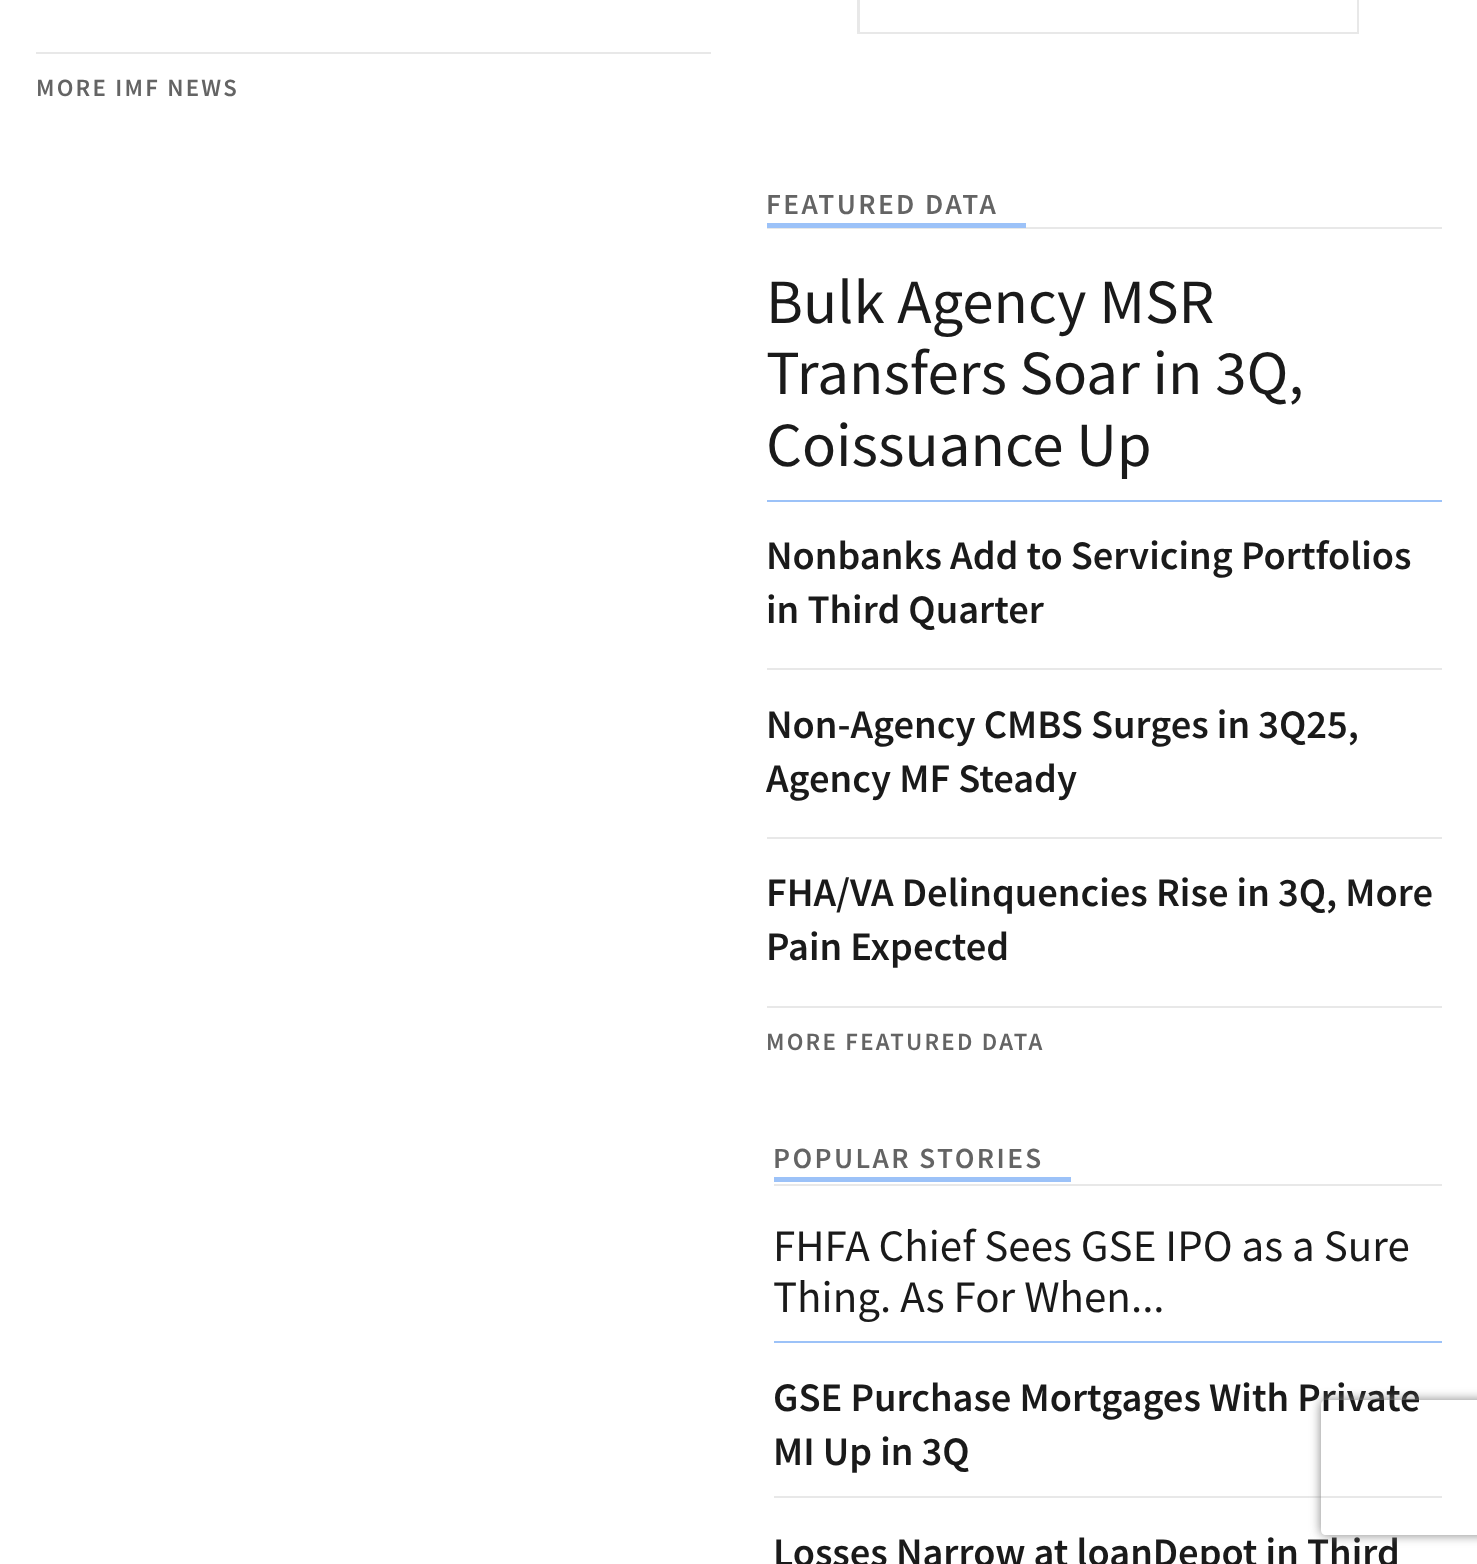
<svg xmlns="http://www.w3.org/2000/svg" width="1477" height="1564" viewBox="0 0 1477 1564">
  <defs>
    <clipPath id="clip1"><path d="M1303 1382H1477V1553H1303ZM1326 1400H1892C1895 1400 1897 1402 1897 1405V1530C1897 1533 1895 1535 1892 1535H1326C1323 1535 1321 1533 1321 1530V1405C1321 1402 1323 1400 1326 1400Z" clip-rule="evenodd"/></clipPath>
    <filter id="blur1" x="-50%" y="-200%" width="200%" height="500%"><feGaussianBlur stdDeviation="5.5"/></filter>
  </defs>
  <rect width="100%" height="100%" fill="#ffffff"/>
  <path d="M1359-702V34L1357 32V-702Z" fill="#e8e8e8"/>
  <path d="M1359 34H857L860 32H1357Z" fill="#000000" fill-opacity="0.09"/>
  <path d="M857 34V-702H860V32Z" fill="#000000" fill-opacity="0.09"/>
  <rect x="36" y="52" width="675" height="2" fill="#e8e8e8"/>
  <text x="36" y="96" font-family="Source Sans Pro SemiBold" font-size="24.75" font-weight="600" letter-spacing="2.25" fill="#646464">MORE IMF NEWS</text>
  <rect x="767" y="227" width="675" height="2" fill="#e8e8e8"/>
  <text x="766" y="214" font-family="Source Sans Pro SemiBold" font-size="29.25" font-weight="600" letter-spacing="2.4" fill="#646464">FEATURED DATA</text>
  <rect x="767" y="223" width="259" height="5" fill="#9cc2f8"/>
  <rect x="767" y="500" width="675" height="2" fill="#9cc2f8"/>
  <text x="766" y="323" font-family="Source Sans Pro" font-size="63" fill="#1a1a1a">Bulk Agency MSR</text>
  <text x="766" y="394" font-family="Source Sans Pro" font-size="63" fill="#1a1a1a">Transfers Soar in 3Q,</text>
  <text x="766" y="466" font-family="Source Sans Pro" font-size="63" fill="#1a1a1a">Coissuance Up</text>
  <rect x="767" y="668" width="675" height="2" fill="#e8e8e8"/>
  <text x="766" y="569" font-family="Source Sans Pro SemiBold" font-size="40.5" font-weight="600" fill="#1a1a1a">Nonbanks Add to Servicing Portfolios</text>
  <text x="766" y="623" font-family="Source Sans Pro SemiBold" font-size="40.5" font-weight="600" fill="#1a1a1a">in Third Quarter</text>
  <rect x="767" y="837" width="675" height="2" fill="#e8e8e8"/>
  <text x="766" y="738" font-family="Source Sans Pro SemiBold" font-size="40.5" font-weight="600" fill="#1a1a1a">Non-Agency CMBS Surges in 3Q25,</text>
  <text x="766" y="792" font-family="Source Sans Pro SemiBold" font-size="40.5" font-weight="600" fill="#1a1a1a">Agency MF Steady</text>
  <rect x="767" y="1006" width="675" height="2" fill="#e8e8e8"/>
  <text x="766" y="906" font-family="Source Sans Pro SemiBold" font-size="40.5" font-weight="600" fill="#1a1a1a">FHA/VA Delinquencies Rise in 3Q, More</text>
  <text x="766" y="960" font-family="Source Sans Pro SemiBold" font-size="40.5" font-weight="600" fill="#1a1a1a">Pain Expected</text>
  <text x="766" y="1050" font-family="Source Sans Pro SemiBold" font-size="24.75" font-weight="600" letter-spacing="2.25" fill="#646464">MORE FEATURED DATA</text>
  <rect x="774" y="1184" width="668" height="2" fill="#e8e8e8"/>
  <text x="773" y="1168" font-family="Source Sans Pro SemiBold" font-size="29.25" font-weight="600" letter-spacing="2.4" fill="#646464">POPULAR STORIES</text>
  <rect x="774" y="1177" width="297" height="5" fill="#9cc2f8"/>
  <rect x="774" y="1341" width="668" height="2" fill="#9cc2f8"/>
  <text x="773" y="1261" font-family="Source Sans Pro" font-size="45" fill="#1a1a1a">FHFA Chief Sees GSE IPO as a Sure</text>
  <text x="773" y="1312" font-family="Source Sans Pro" font-size="45" fill="#1a1a1a">Thing. As For When...</text>
  <rect x="774" y="1496" width="668" height="2" fill="#e8e8e8"/>
  <text x="773" y="1411" font-family="Source Sans Pro SemiBold" font-size="40.5" font-weight="600" fill="#1a1a1a">GSE Purchase Mortgages With Private</text>
  <text x="773" y="1465" font-family="Source Sans Pro SemiBold" font-size="40.5" font-weight="600" fill="#1a1a1a">MI Up in 3Q</text>
  <text x="773" y="1566" font-family="Source Sans Pro SemiBold" font-size="40.5" font-weight="600" fill="#1a1a1a">Losses Narrow at loanDepot in Third</text>
  <g clip-path="url(#clip1)">
    <rect x="1321" y="1400" width="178" height="135" rx="5" fill="#808080" filter="url(#blur1)"/>
  </g>
</svg>
